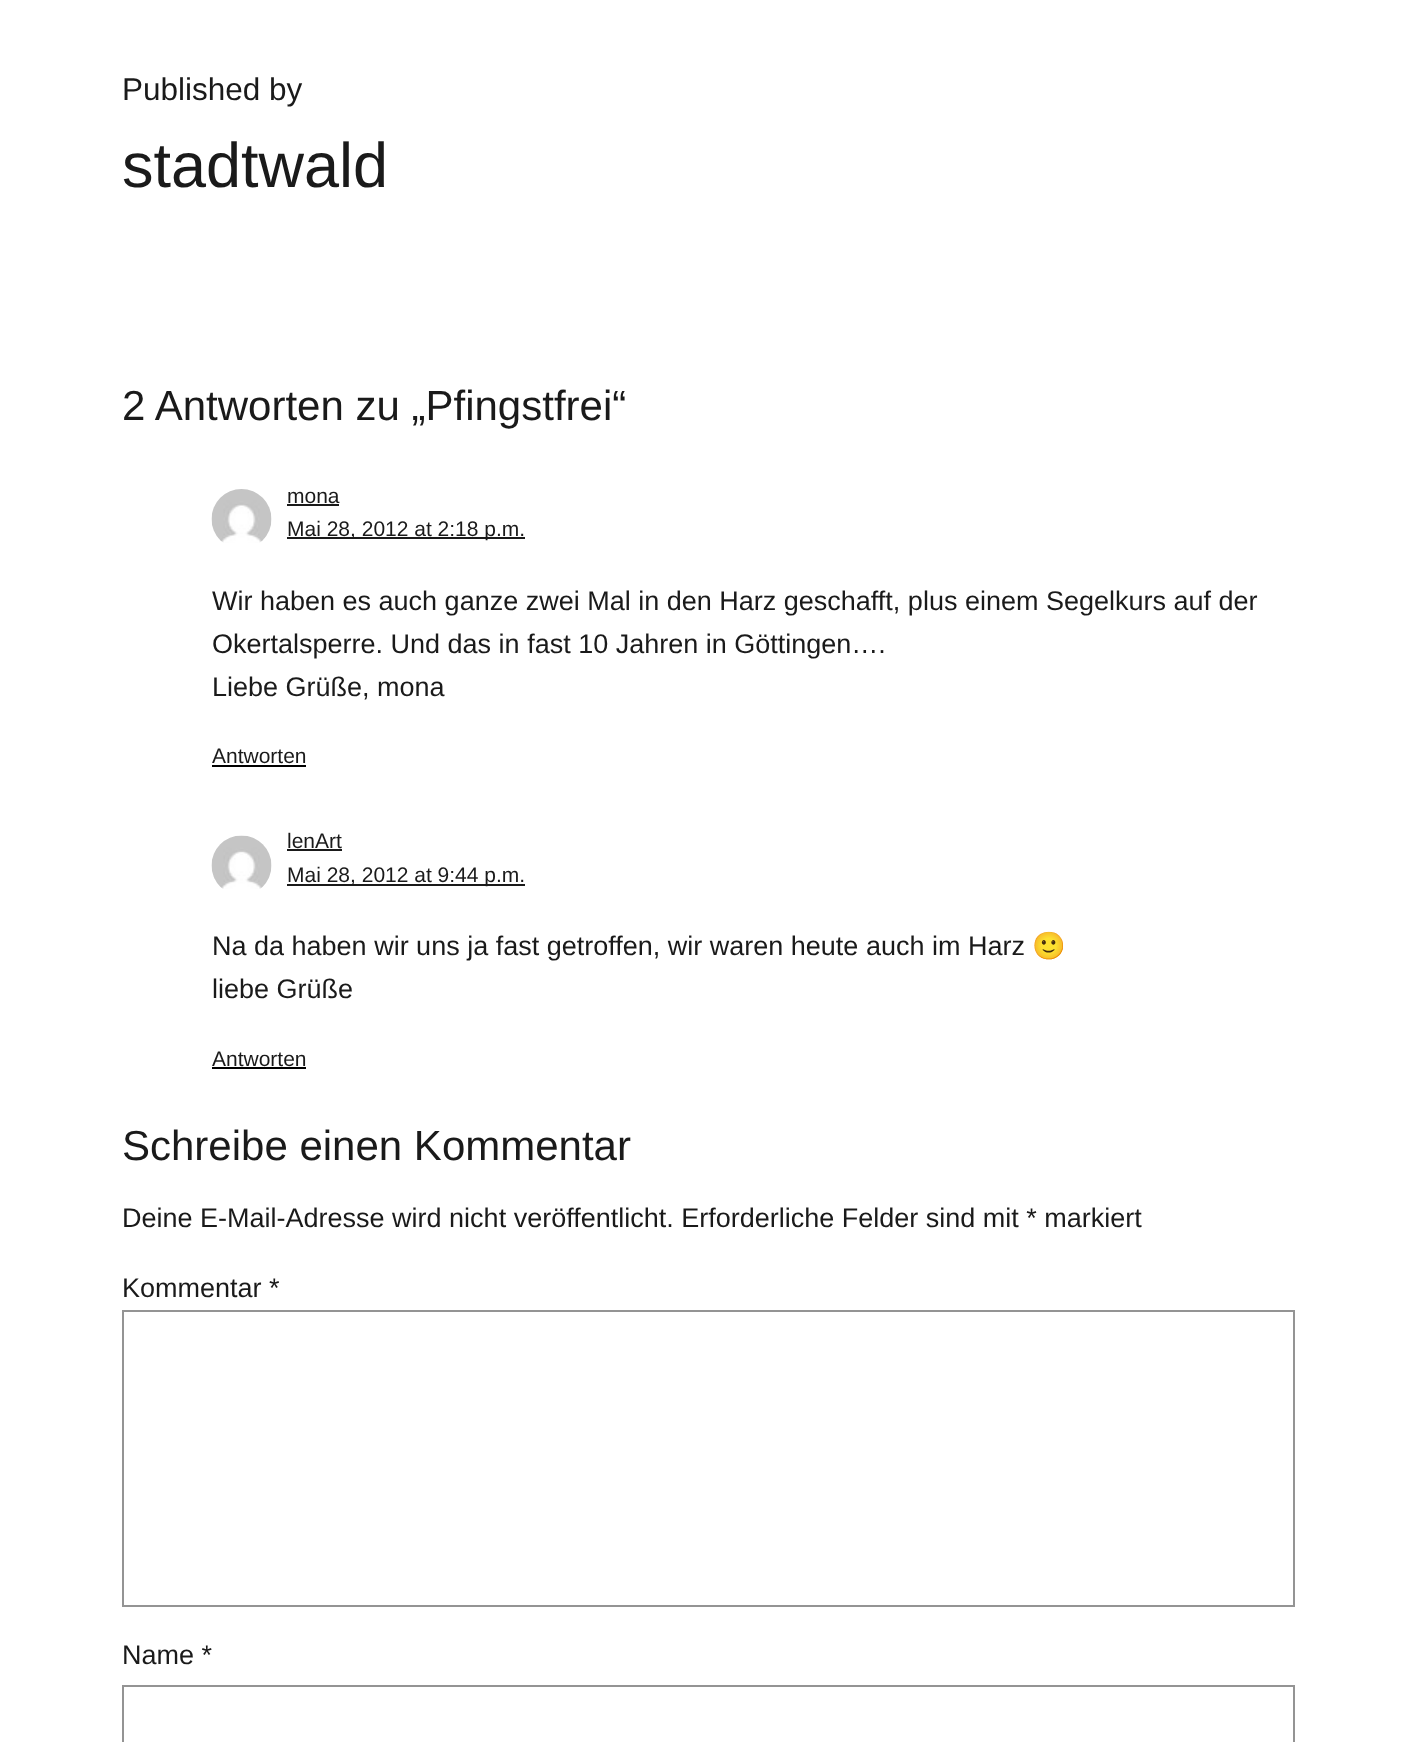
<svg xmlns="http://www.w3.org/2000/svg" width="1416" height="1742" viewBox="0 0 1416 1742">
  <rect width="100%" height="100%" fill="#ffffff"/>
  <text x="122" y="100" font-family="Liberation Sans" font-size="31.5" fill="#1a1a1a">Published by</text>
  <text x="122" y="187" font-family="Liberation Sans" font-size="63" fill="#1a1a1a">stadtwald</text>
  <text x="122" y="420" font-family="Liberation Sans" font-size="42" fill="#1a1a1a">2 Antworten zu „Pfingstfrei“</text>
  <image x="211" y="489" width="61" height="54" href="img1.png"/>
  <text x="287" y="503" font-family="Liberation Sans" font-size="21" fill="#1a1a1a">mona</text>
  <rect x="287" y="504" width="52" height="2" fill="#1a1a1a"/>
  <rect x="287" y="537" width="238" height="2" fill="#1a1a1a"/>
  <text x="287" y="536" font-family="Liberation Sans" font-size="21" fill="#1a1a1a">Mai 28, 2012 at 2:18 p.m.</text>
  <text x="212" y="610" font-family="Liberation Sans" font-size="27" fill="#1a1a1a">Wir haben es auch ganze zwei Mal in den Harz geschafft, plus einem Segelkurs auf der</text>
  <text x="212" y="653" font-family="Liberation Sans" font-size="27" fill="#1a1a1a">Okertalsperre. Und das in fast 10 Jahren in Göttingen….</text>
  <text x="212" y="696" font-family="Liberation Sans" font-size="27" fill="#1a1a1a">Liebe Grüße, mona</text>
  <text x="212" y="763" font-family="Liberation Sans" font-size="21" fill="#1a1a1a">Antworten</text>
  <rect x="212" y="765" width="94" height="2" fill="#000000"/>
  <image x="211" y="835" width="61" height="54" href="img2.png"/>
  <text x="287" y="848" font-family="Liberation Sans" font-size="21" fill="#1a1a1a">lenArt</text>
  <rect x="287" y="849" width="55" height="2" fill="#1a1a1a"/>
  <rect x="287" y="884" width="238" height="2" fill="#1a1a1a"/>
  <text x="287" y="882" font-family="Liberation Sans" font-size="21" fill="#1a1a1a">Mai 28, 2012 at 9:44 p.m.</text>
  <text x="212" y="955" font-family="Liberation Sans" font-size="27" fill="#1a1a1a">Na da haben wir uns ja fast getroffen, wir waren heute auch im Harz</text>
  <text x="1032" y="955" font-family="Noto Color Emoji" font-size="27" fill="#1a1a1a">🙂</text>
  <text x="212" y="998" font-family="Liberation Sans" font-size="27" fill="#1a1a1a">liebe Grüße</text>
  <text x="212" y="1066" font-family="Liberation Sans" font-size="21" fill="#1a1a1a">Antworten</text>
  <rect x="212" y="1067" width="94" height="2" fill="#000000"/>
  <text x="122" y="1160" font-family="Liberation Sans" font-size="42" fill="#1a1a1a">Schreibe einen Kommentar</text>
  <text x="122" y="1227" font-family="Liberation Sans" font-size="27" fill="#1a1a1a">Deine E-Mail-Adresse wird nicht veröffentlicht. Erforderliche Felder sind mit * markiert</text>
  <text x="122" y="1297" font-family="Liberation Sans" font-size="27" fill="#1a1a1a">Kommentar *</text>
  <rect x="123" y="1311" width="1171" height="295" fill="none" stroke="#949494" stroke-width="2"/>
  <text x="122" y="1664" font-family="Liberation Sans" font-size="27" fill="#1a1a1a">Name *</text>
  <rect x="123" y="1686" width="1171" height="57" fill="none" stroke="#949494" stroke-width="2"/>
</svg>
